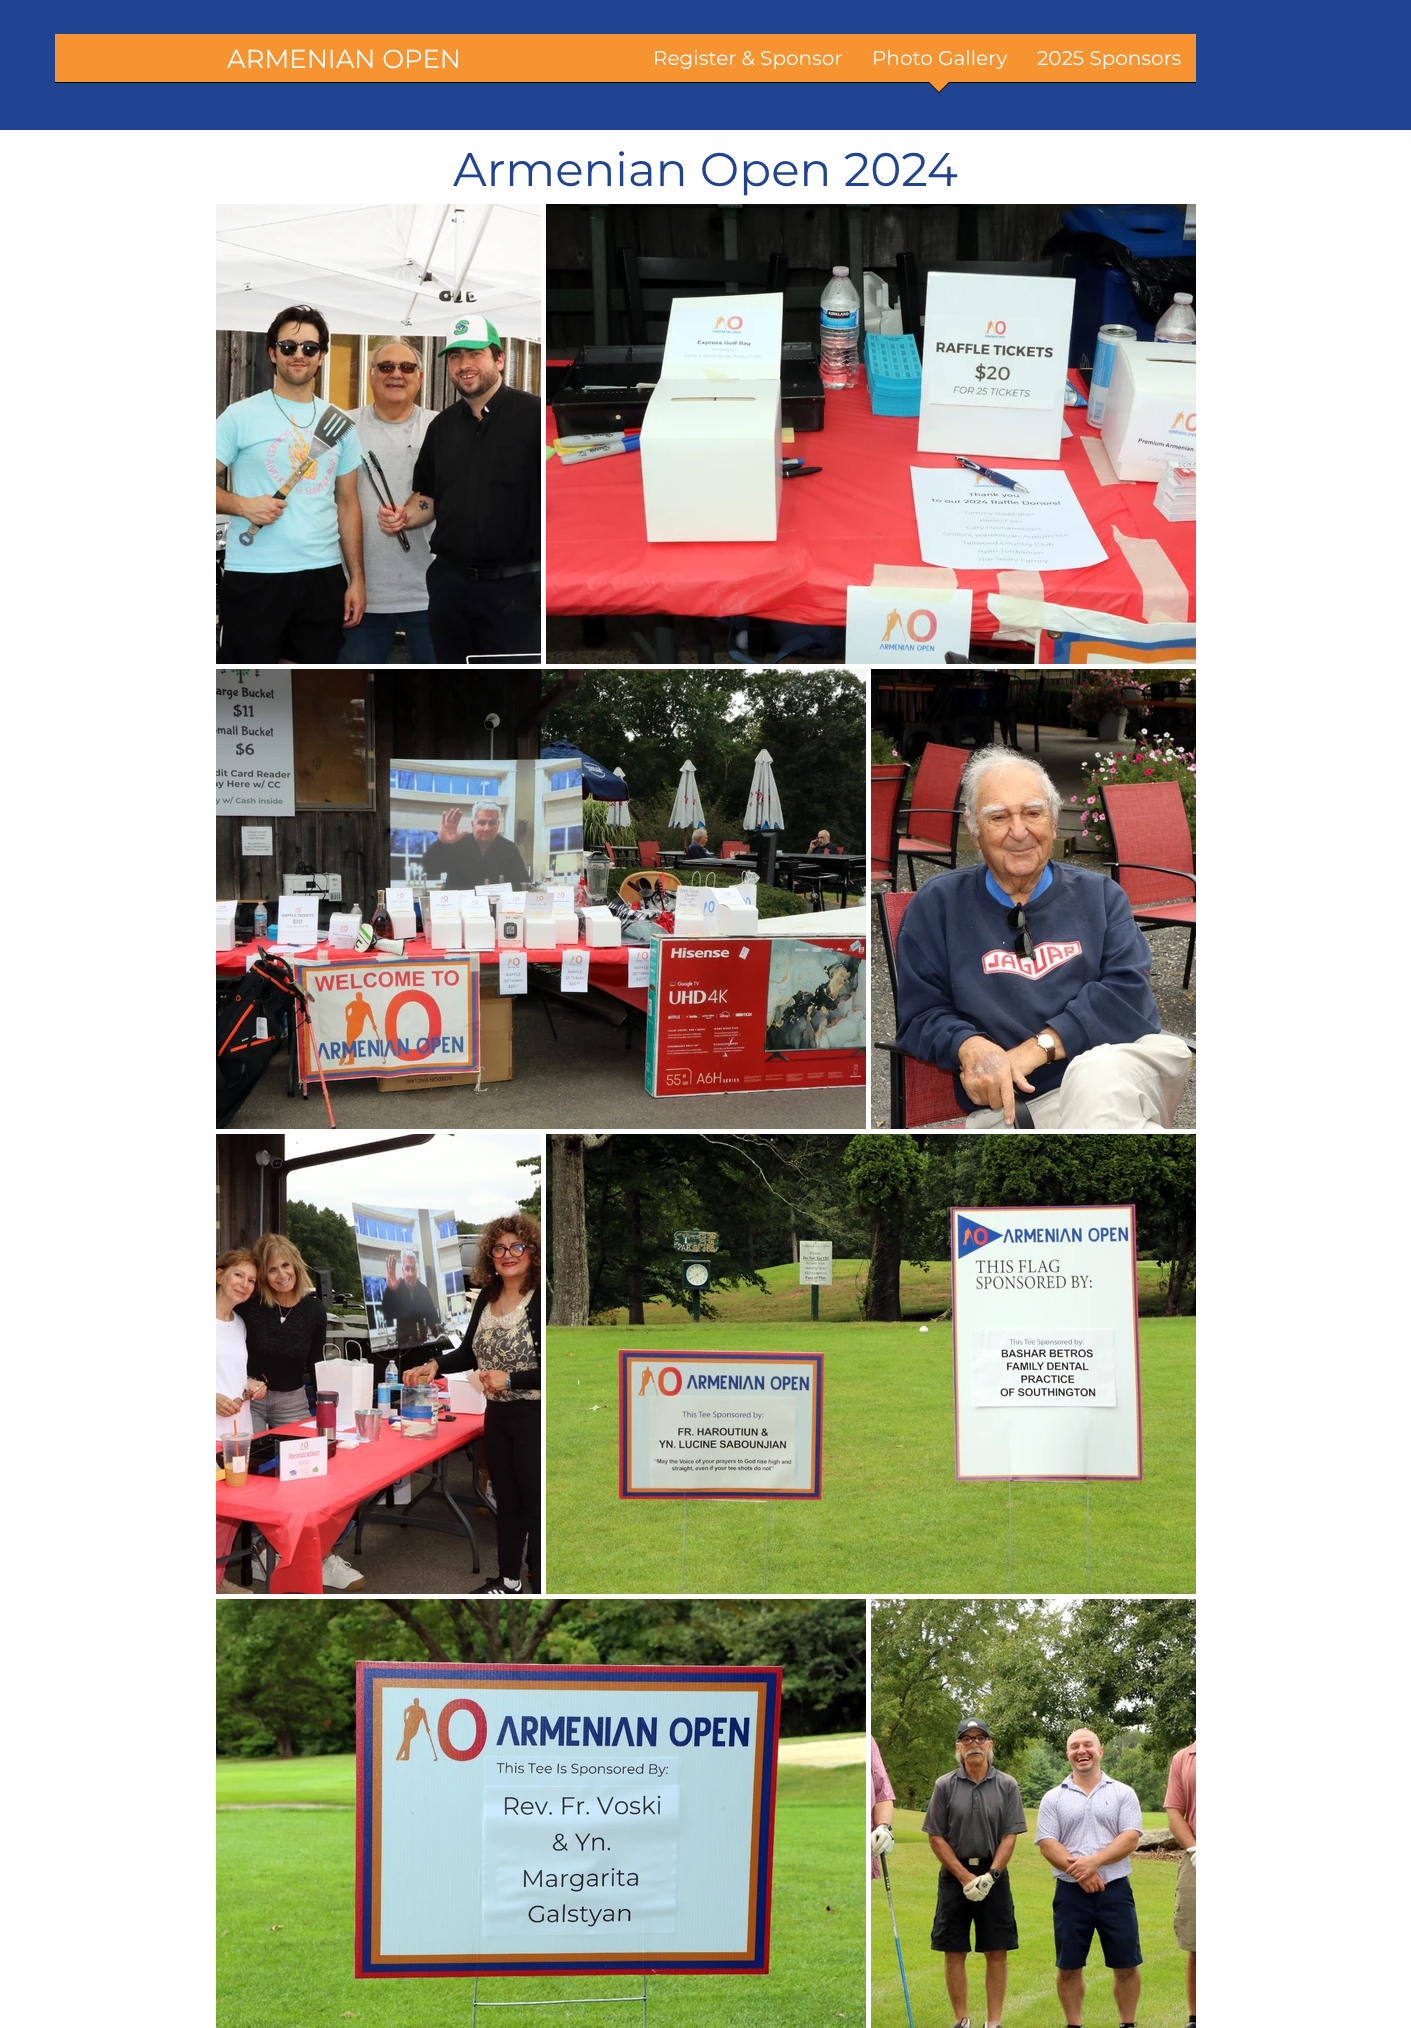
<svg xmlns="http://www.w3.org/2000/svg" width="1411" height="2028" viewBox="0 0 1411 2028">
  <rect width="100%" height="100%" fill="#ffffff"/>
  <rect x="0" y="0" width="1411" height="130" fill="#204392"/>
  <rect x="55" y="34" width="1141" height="48" fill="#f79432"/>
  <text x="227" y="68" font-family="Montserrat" font-size="26" fill="#fafafa">ARMENIAN OPEN</text>
  <rect x="55" y="82" width="1141" height="1" fill="#000000"/>
  <text x="653" y="65" font-family="Montserrat" font-size="20" fill="#fafafa">Register &amp; Sponsor</text>
  <text x="872" y="65" font-family="Montserrat" font-size="20" fill="#fafafa">Photo Gallery</text>
  <path d="M928 82H950L939 93Z" fill="#000000"/>
  <path d="M929 82H949L939 92Z" fill="#f79432"/>
  <text x="1037" y="65" font-family="Montserrat" font-size="20" fill="#fafafa">2025 Sponsors</text>
  <text x="453" y="186" font-family="Montserrat" font-size="47" fill="#204392">Armenian Open 2024</text>
  <image x="216" y="204" width="325" height="460" href="img1.png"/>
  <image x="546" y="204" width="650" height="460" href="img2.png"/>
  <image x="216" y="669" width="650" height="460" href="img3.png"/>
  <image x="871" y="669" width="325" height="460" href="img4.png"/>
  <image x="216" y="1134" width="325" height="460" href="img5.png"/>
  <image x="546" y="1134" width="650" height="460" href="img6.png"/>
  <image x="216" y="1599" width="650" height="429" href="img7.png"/>
  <image x="871" y="1599" width="325" height="429" href="img8.png"/>
</svg>
